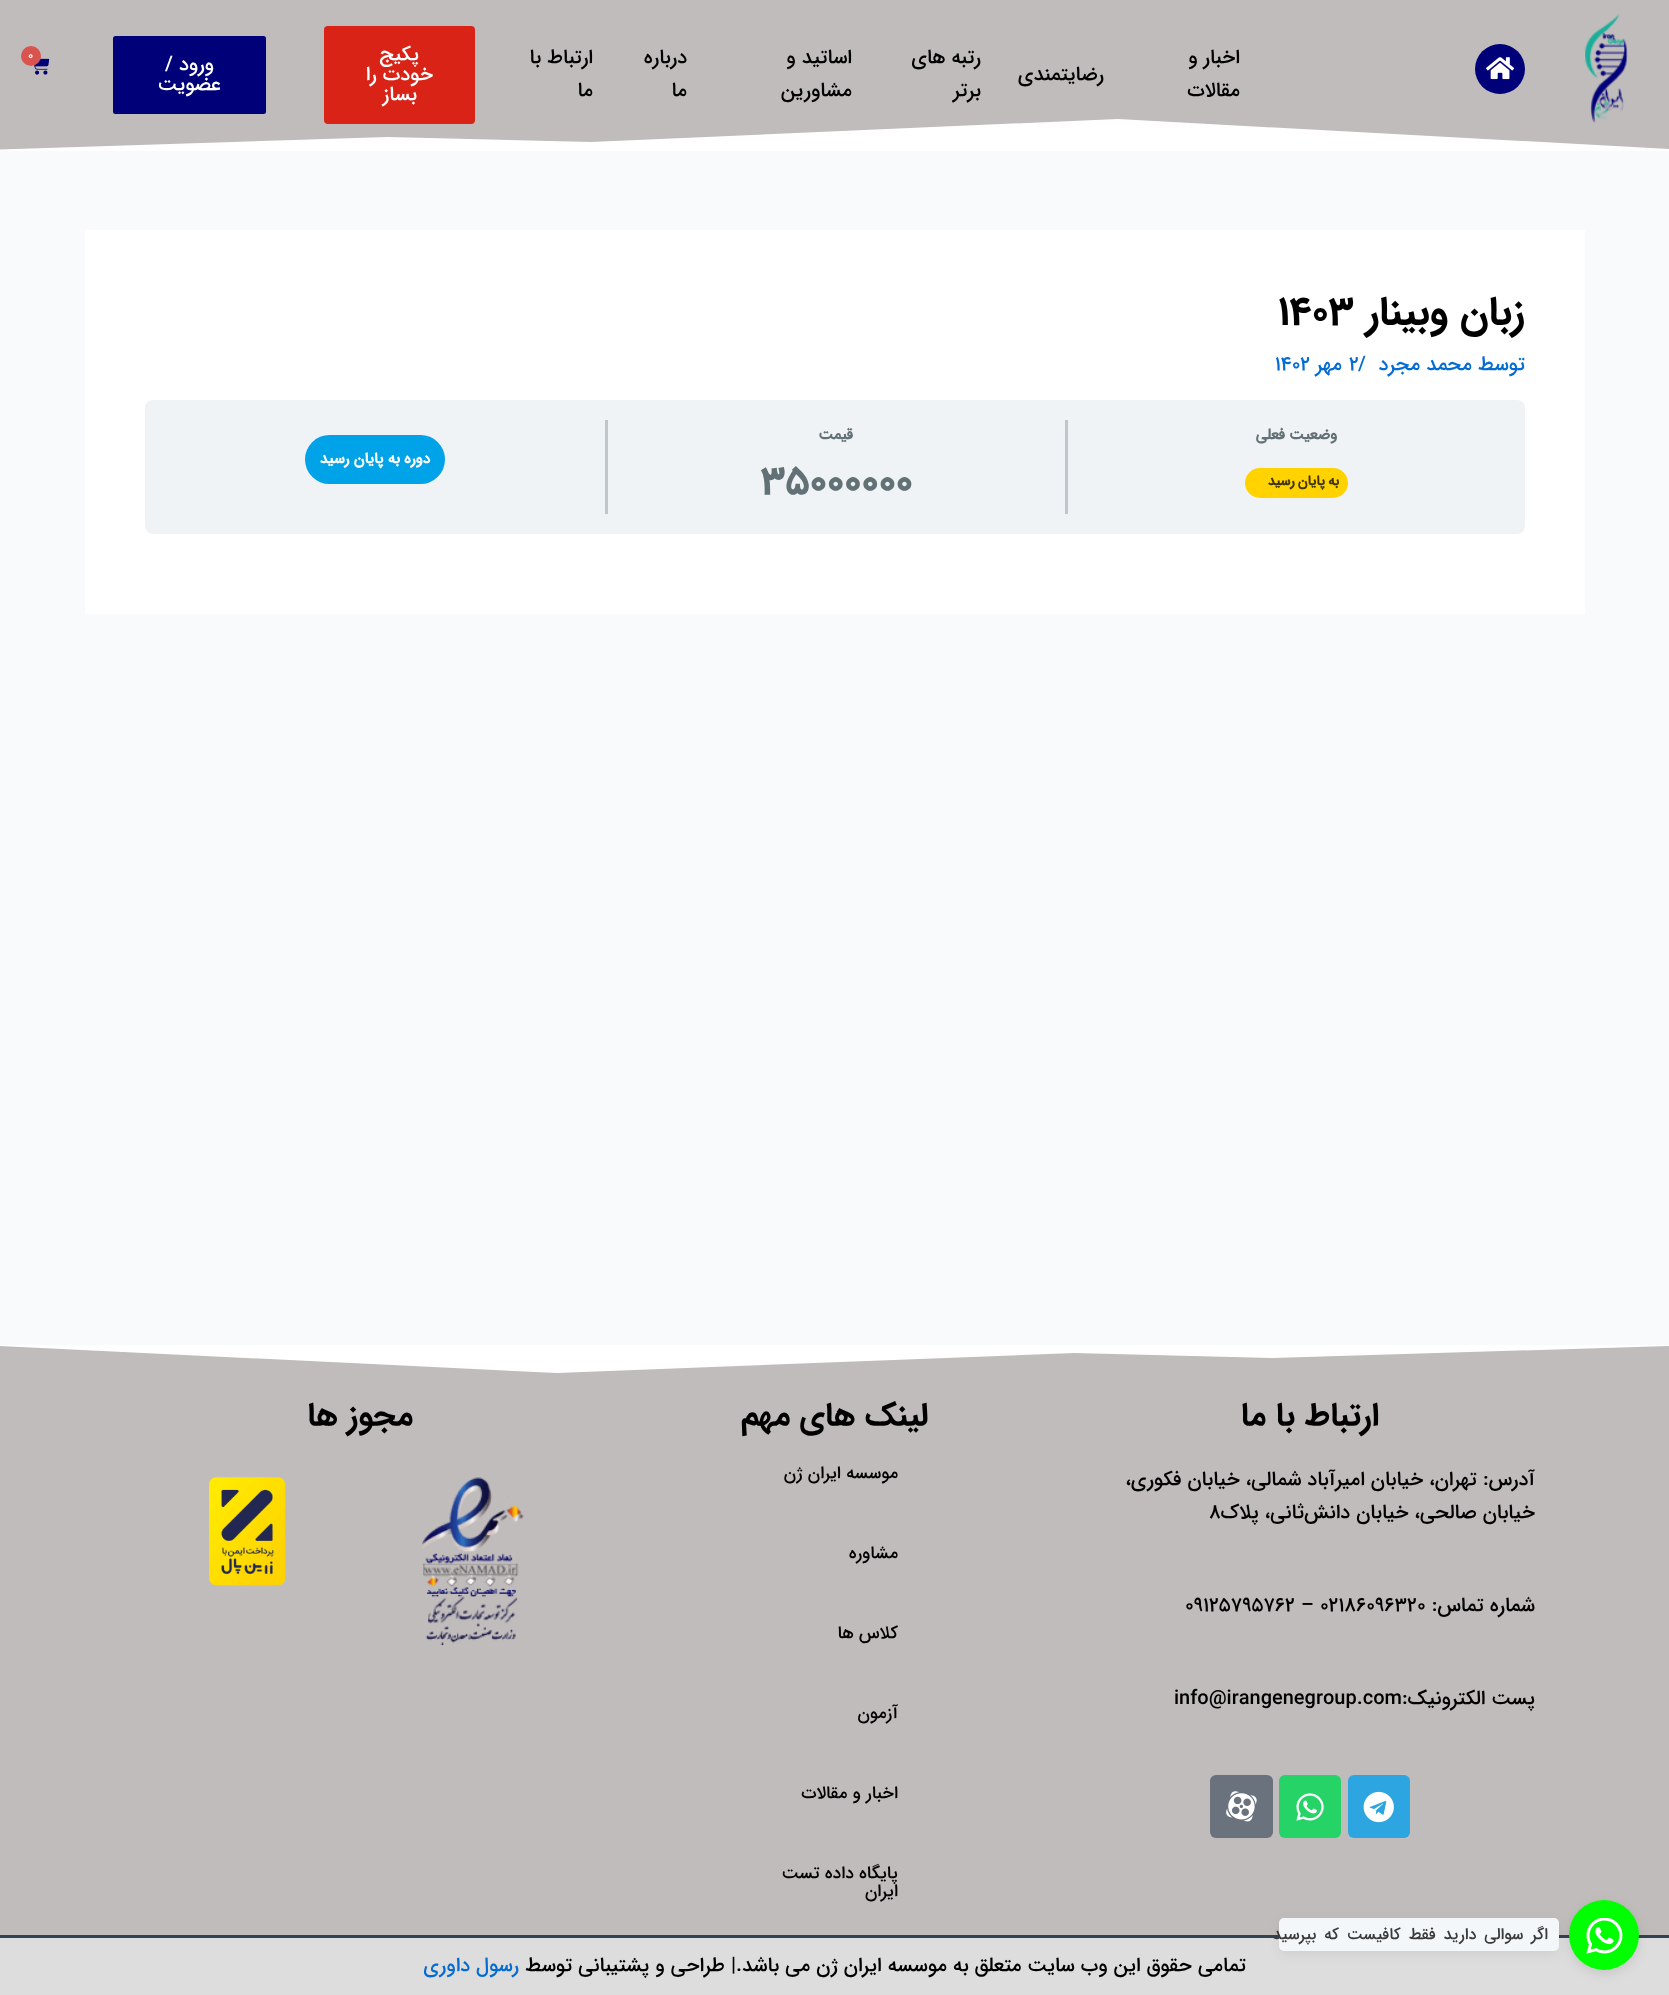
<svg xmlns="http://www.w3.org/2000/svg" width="1669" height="1995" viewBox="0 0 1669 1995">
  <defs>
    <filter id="blur1" x="-50%" y="-200%" width="200%" height="500%"><feGaussianBlur stdDeviation="5.5"/></filter>
  </defs>
  <rect width="100%" height="100%" fill="#f9fafb"/>
  <rect x="0" y="0" width="1669" height="150" fill="#c1bcbc"/>
  <path d="M388 137L591 142L1118 119L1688 150V151H-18V150" fill="#ffffff"/>
  <image x="1584" y="13" width="44" height="110" href="img1.png"/>
  <circle cx="1500" cy="69" r="25" fill="#000079"/>
  <image x="1486" y="57" width="29" height="23" href="img2.png"/>
  <text x="1240" y="63" font-family="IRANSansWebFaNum" font-size="20" font-weight="500" direction="rtl" fill="#000000">اخبار و</text>
  <text x="1240" y="96" font-family="IRANSansWebFaNum" font-size="20" font-weight="500" direction="rtl" fill="#000000">مقالات</text>
  <text x="1104" y="80" font-family="IRANSansWebFaNum" font-size="20" font-weight="500" direction="rtl" fill="#000000">رضایتمندی</text>
  <text x="981" y="63" font-family="IRANSansWebFaNum" font-size="20" font-weight="500" direction="rtl" fill="#000000">رتبه های</text>
  <text x="981" y="96" font-family="IRANSansWebFaNum" font-size="20" font-weight="500" direction="rtl" fill="#000000">برتر</text>
  <text x="852" y="63" font-family="IRANSansWebFaNum" font-size="20" font-weight="500" direction="rtl" fill="#000000">اساتید و</text>
  <text x="852" y="96" font-family="IRANSansWebFaNum" font-size="20" font-weight="500" direction="rtl" fill="#000000">مشاورین</text>
  <text x="687" y="63" font-family="IRANSansWebFaNum" font-size="20" font-weight="500" direction="rtl" fill="#000000">درباره</text>
  <text x="687" y="96" font-family="IRANSansWebFaNum" font-size="20" font-weight="500" direction="rtl" fill="#000000">ما</text>
  <text x="593" y="63" font-family="IRANSansWebFaNum" font-size="20" font-weight="500" direction="rtl" fill="#000000">ارتباط با</text>
  <text x="593" y="96" font-family="IRANSansWebFaNum" font-size="20" font-weight="500" direction="rtl" fill="#000000">ما</text>
  <rect x="324" y="26" width="151" height="98" rx="4" fill="#d82316"/>
  <text x="419" y="60" font-family="IRANSansWebFaNum" font-size="20" font-weight="500" direction="rtl" fill="#ffffff">پکیج</text>
  <text x="433" y="80" font-family="IRANSansWebFaNum" font-size="20" font-weight="500" direction="rtl" fill="#ffffff">خودت را</text>
  <text x="417" y="100" font-family="IRANSansWebFaNum" font-size="20" font-weight="500" direction="rtl" fill="#ffffff">بساز</text>
  <rect x="113" y="36" width="153" height="78" rx="2.5" fill="#000079"/>
  <text x="214" y="70" font-family="IRANSansWebFaNum" font-size="20" font-weight="500" direction="rtl" fill="#ffffff">ورود /</text>
  <text x="221" y="90" font-family="IRANSansWebFaNum" font-size="20" font-weight="500" direction="rtl" fill="#ffffff">عضویت</text>
  <image x="34" y="58" width="16" height="17" href="img3.png"/>
  <circle cx="31" cy="56" r="10" fill="#d9534f"/>
  <text x="28" y="59" font-family="IRANSansWebFaNum" font-size="12" font-weight="500" fill="#ffffff">0</text>
  <rect x="85" y="230" width="1500" height="384" fill="#ffffff"/>
  <text x="1525" y="324" font-family="IRANSansWebFaNum" font-size="40" font-weight="bold" direction="rtl" fill="#000000">زبان وبینار</text>
  <text x="1278" y="324" font-family="IRANSansWebFaNum" font-size="40" font-weight="bold" fill="#000000">1403</text>
  <text x="1525" y="370" font-family="IRANSansWebFaNum" font-size="20" font-weight="500" direction="rtl" fill="#046bd2">توسط</text>
  <text x="1472" y="370" font-family="IRANSansWebFaNum" font-size="20" font-weight="500" direction="rtl" fill="#046bd2">محمد مجرد</text>
  <text x="1358" y="370" font-family="IRANSansWebFaNum" font-size="20" font-weight="500" fill="#046bd2">/</text>
  <text x="1349" y="370" font-family="IRANSansWebFaNum" font-size="20" font-weight="500" fill="#046bd2">2</text>
  <text x="1342" y="370" font-family="IRANSansWebFaNum" font-size="20" font-weight="500" direction="rtl" fill="#046bd2">مهر</text>
  <text x="1275" y="370" font-family="IRANSansWebFaNum" font-size="20" font-weight="500" fill="#046bd2">1402</text>
  <rect x="145" y="400" width="1380" height="134" rx="8" fill="#f0f3f6"/>
  <rect x="1065" y="420" width="3" height="94" fill="#bec5cb"/>
  <text x="1337" y="439" font-family="'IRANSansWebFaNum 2'" font-size="15" font-weight="bold" direction="rtl" fill="#617175">وضعیت فعلی</text>
  <rect x="1245" y="468" width="103" height="30" rx="15" fill="#ffd200"/>
  <text x="1339" y="485" word-spacing="-1" font-family="'IRANSansWebFaNum 2'" font-size="13.75" font-weight="bold" letter-spacing="0.6" direction="rtl" fill="#403500">به پایان رسید</text>
  <rect x="605" y="420" width="3" height="94" fill="#bec5cb"/>
  <text x="853" y="439" font-family="'IRANSansWebFaNum 2'" font-size="15" font-weight="bold" direction="rtl" fill="#617175">قیمت</text>
  <text x="760" y="494" font-family="'IRANSansWebFaNum 2'" font-size="40" font-weight="bold" fill="#617175">35000000</text>
  <rect x="305" y="435" width="140" height="49" rx="24.5" fill="#00a2e8"/>
  <text x="430" y="463" font-family="'IRANSansWebFaNum 2'" font-size="15" font-weight="bold" direction="rtl" fill="#ffffff">دوره به پایان رسید</text>
  <rect x="0" y="1346" width="1669" height="589" fill="#c1bcbc"/>
  <path d="M1273 1358L1074 1353L557 1373L-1 1346V1345H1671V1346" fill="#ffffff"/>
  <text x="1379" y="1425" font-family="IRANSansWebFaNum" font-size="32.5" font-weight="bold" direction="rtl" fill="#000000">ارتباط با ما</text>
  <text x="1535" y="1485" font-family="IRANSansWebFaNum" font-size="20" font-weight="500" direction="rtl" fill="#000000">آدرس: تهران، خیابان امیرآباد شمالی، خیابان فکوری،</text>
  <text x="1535" y="1518" font-family="IRANSansWebFaNum" font-size="20" font-weight="500" direction="rtl" fill="#000000">خیابان صالحی، خیابان دانش‌ثانی، پلاک</text>
  <text x="1209" y="1518" font-family="IRANSansWebFaNum" font-size="20" font-weight="500" fill="#000000">۸</text>
  <text x="1535" y="1611" font-family="IRANSansWebFaNum" font-size="20" font-weight="500" direction="rtl" fill="#000000">شماره تماس:</text>
  <text x="1185" y="1611" font-family="IRANSansWebFaNum" font-size="20" font-weight="500" fill="#000000">۰۹۱۲۵۷۹۵۷۶۲ – ۰۲۱۸۶۰۹۶۳۲۰</text>
  <text x="1535" y="1704" font-family="IRANSansWebFaNum" font-size="20" font-weight="500" direction="rtl" fill="#000000">پست الکترونیک:</text>
  <text x="1174" y="1704" font-family="IRANSansWebFaNum" font-size="20" font-weight="500" fill="#000000">info@irangenegroup.com</text>
  <rect x="1348" y="1775" width="62" height="63" rx="6" fill="#2ca5e0"/>
  <image x="1363" y="1791" width="31" height="32" href="img4.png"/>
  <rect x="1279" y="1775" width="62" height="63" rx="6" fill="#25d366"/>
  <image x="1296" y="1793" width="28" height="28" href="img5.png"/>
  <rect x="1210" y="1775" width="63" height="63" rx="6" fill="#69727d"/>
  <image x="1226" y="1791" width="31" height="31" href="img6.png"/>
  <text x="928" y="1425" font-family="IRANSansWebFaNum" font-size="32.5" font-weight="bold" direction="rtl" fill="#000000">لینک های مهم</text>
  <text x="898" y="1478" font-family="IRANSansWebFaNum" font-size="17.5" font-weight="500" direction="rtl" fill="#000000">موسسه ایران ژن</text>
  <text x="898" y="1558" font-family="IRANSansWebFaNum" font-size="17.5" font-weight="500" direction="rtl" fill="#000000">مشاوره</text>
  <text x="898" y="1638" font-family="IRANSansWebFaNum" font-size="17.5" font-weight="500" direction="rtl" fill="#000000">کلاس ها</text>
  <text x="898" y="1718" font-family="IRANSansWebFaNum" font-size="17.5" font-weight="500" direction="rtl" fill="#000000">آزمون</text>
  <text x="898" y="1798" font-family="IRANSansWebFaNum" font-size="17.5" font-weight="500" direction="rtl" fill="#000000">اخبار و مقالات</text>
  <text x="898" y="1878" font-family="IRANSansWebFaNum" font-size="17.5" font-weight="500" direction="rtl" fill="#000000">پایگاه داده تست</text>
  <text x="898" y="1896" font-family="IRANSansWebFaNum" font-size="17.5" font-weight="500" direction="rtl" fill="#000000">ایران</text>
  <text x="413" y="1425" font-family="IRANSansWebFaNum" font-size="32.5" font-weight="bold" direction="rtl" fill="#000000">مجوز ها</text>
  <image x="422" y="1477" width="102" height="169" href="img7.png"/>
  <image x="209" y="1477" width="77" height="109" href="img8.png"/>
  <rect x="0" y="1938" width="1669" height="57" fill="#dddddd"/>
  <rect x="0" y="1935" width="1669" height="3" fill="#334155"/>
  <text x="1246" y="1971" font-family="IRANSansWebFaNum" font-size="20" font-weight="500" direction="rtl" fill="#000000">تمامی حقوق این وب سایت متعلق به موسسه ایران ژن می باشد.| طراحی و پشتیبانی توسط</text>
  <text x="519" y="1971" font-family="IRANSansWebFaNum" font-size="20" font-weight="500" direction="rtl" fill="#046bd2">رسول داوری</text>
  <rect x="1569" y="1904" width="70" height="70" rx="35" fill="#000000" fill-opacity="0.1" filter="url(#blur1)"/>
  <circle cx="1604" cy="1935" r="35" fill="#00ff00"/>
  <image x="1586" y="1918" width="37" height="36" href="img9.png"/>
  <rect x="1279" y="1921" width="280" height="34" rx="5" fill="#000000" fill-opacity="0.06" filter="url(#blur1)"/>
  <rect x="1279" y="1918" width="280" height="33" rx="5" fill="#f4f7fa"/>
  <text x="1548" y="1939" word-spacing="3" font-family="IRANSansWebFaNum" font-size="16.25" font-weight="500" letter-spacing="-0.5" direction="rtl" fill="#3a3a3a">اگر سوالی دارید فقط کافیست که بپرسید</text>
</svg>
